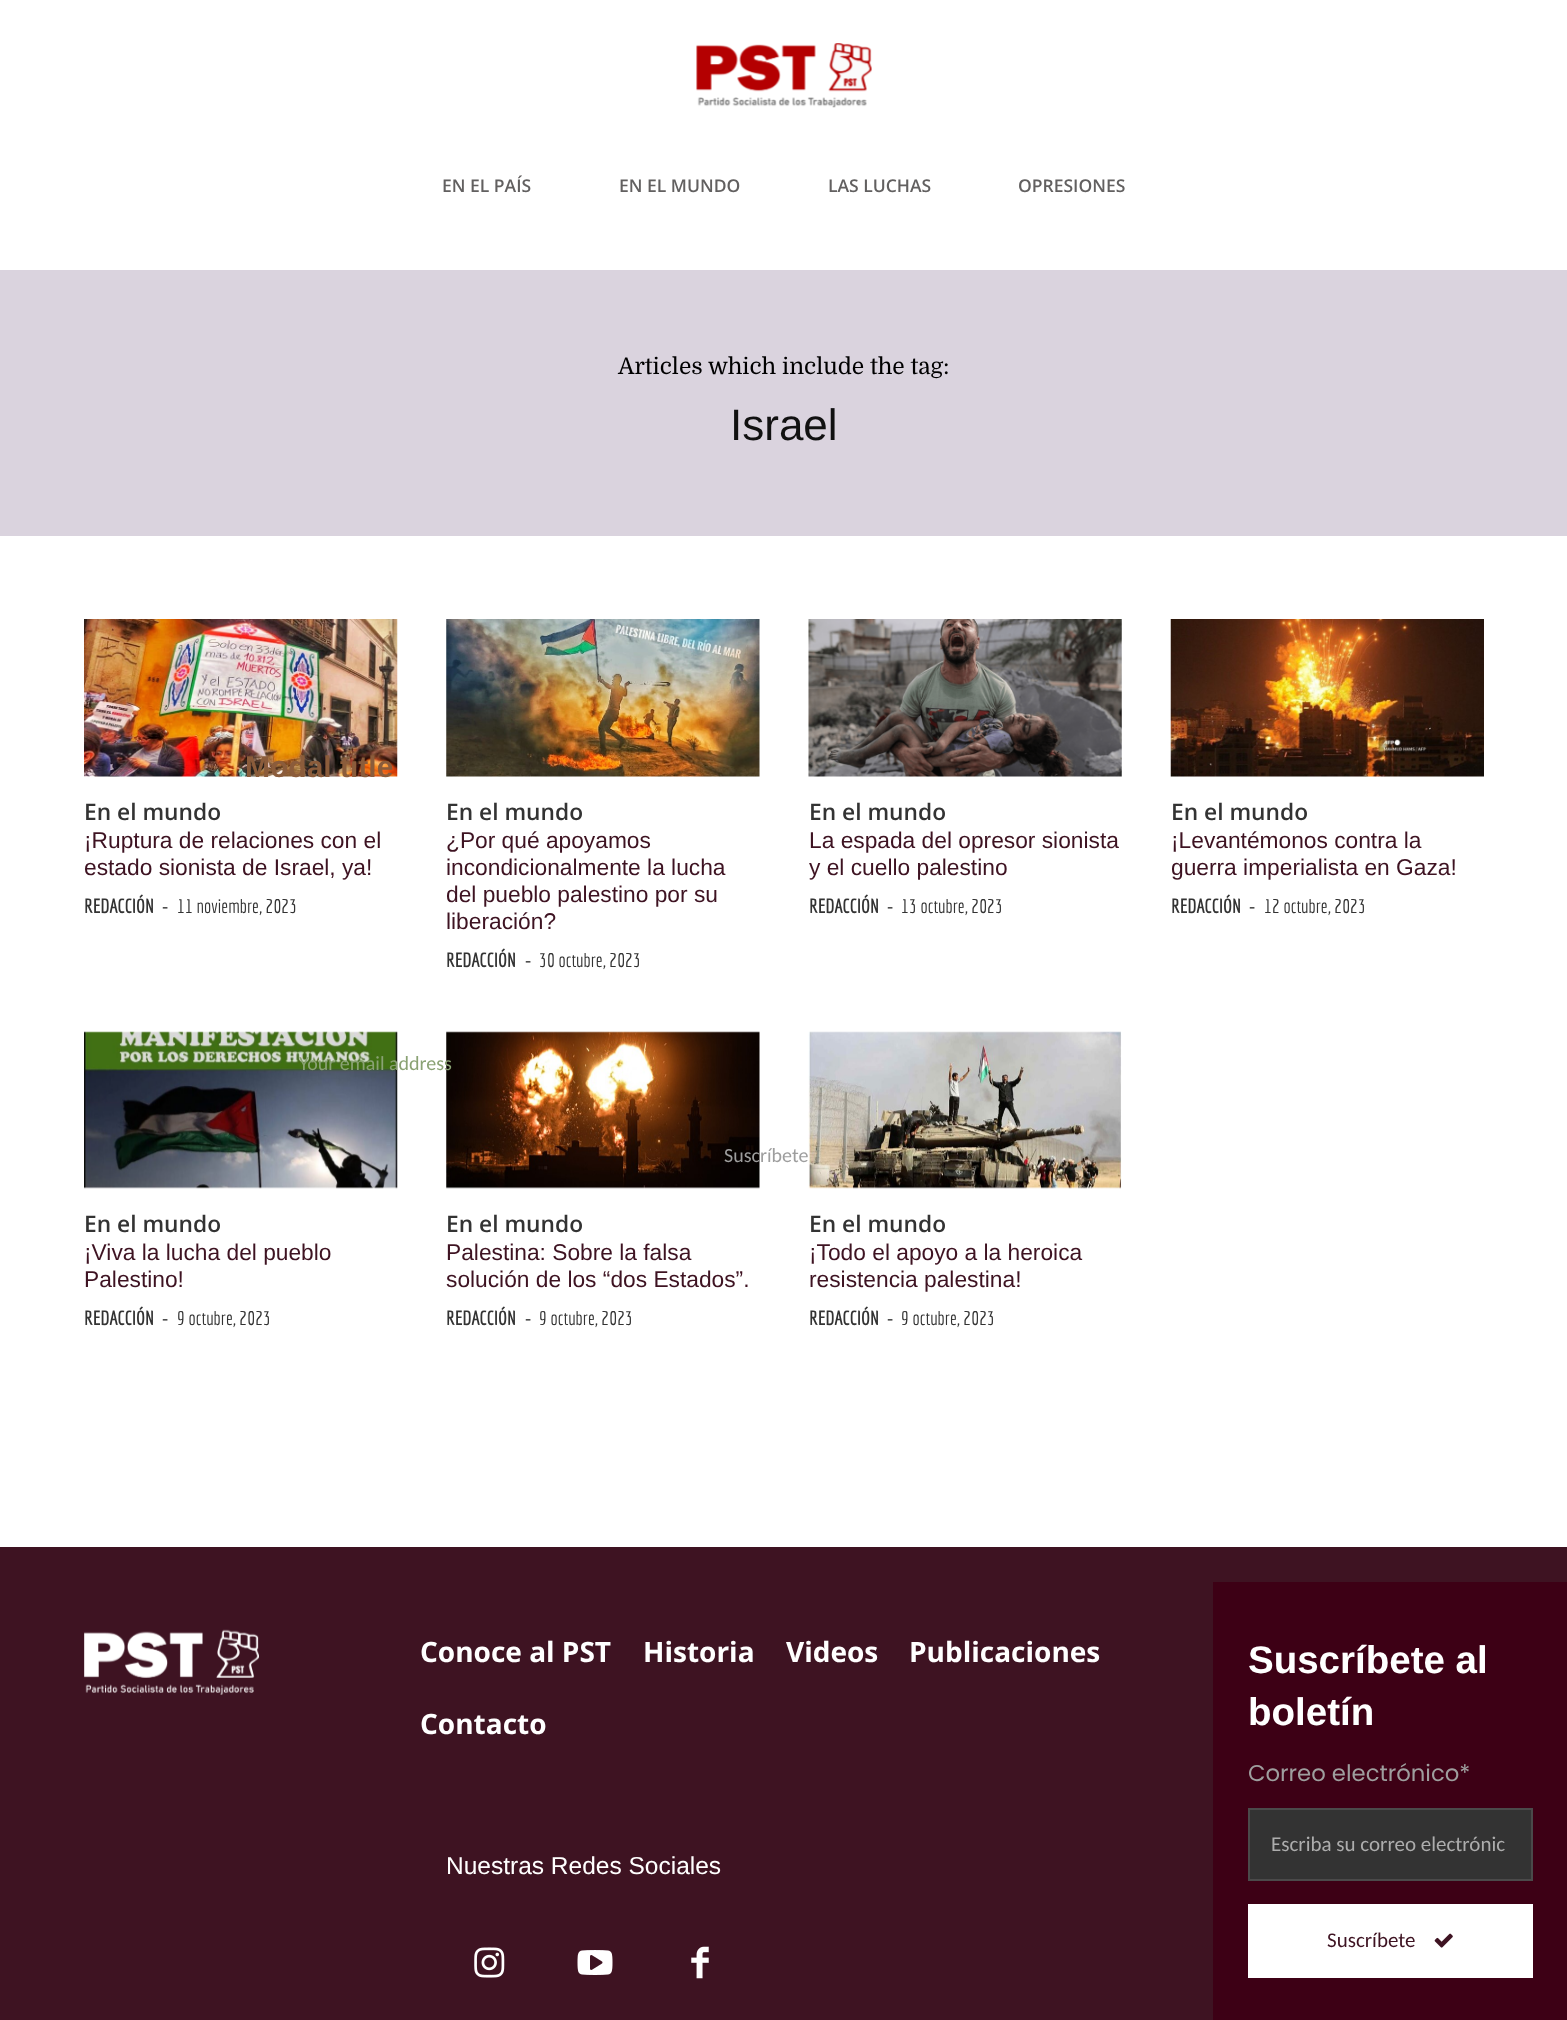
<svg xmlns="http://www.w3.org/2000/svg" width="1567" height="2020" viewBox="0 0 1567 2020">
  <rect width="100%" height="100%" fill="#ffffff"/>
  <image x="696" y="43" width="176" height="65" href="img1.png"/>
  <text x="442" y="192" font-family="Open Sans" font-size="17.5" font-weight="600" fill="#626060">EN EL PAÍS</text>
  <text x="619" y="192" font-family="Open Sans" font-size="17.5" font-weight="600" fill="#626060">EN EL MUNDO</text>
  <text x="828" y="192" font-family="Open Sans" font-size="17.5" font-weight="600" fill="#626060">LAS LUCHAS</text>
  <text x="1018" y="192" font-family="Open Sans" font-size="17.5" font-weight="600" fill="#626060">OPRESIONES</text>
  <rect x="0" y="270" width="1567" height="266" fill="#dad3de"/>
  <text x="618" y="374" font-family="Domine" font-size="22.75" fill="#000000">Articles which include the tag:</text>
  <text x="730" y="440" font-family="Liberation Sans" font-size="44" fill="#111111">Israel</text>
  <image x="84" y="619" width="314" height="158" href="img2.png"/>
  <text x="84" y="820" font-family="Open Sans" font-size="22.75" font-weight="600" fill="#333333">En el mundo</text>
  <text x="84" y="848" font-family="Liberation Sans" font-size="22.75" fill="#3e1322">¡Ruptura de relaciones con el</text>
  <text x="84" y="875" font-family="Liberation Sans" font-size="22.75" fill="#3e1322">estado sionista de Israel, ya!</text>
  <text x="84" y="913" font-family="Economica" font-size="19.25" font-weight="bold" fill="#333333">REDACCIÓN</text>
  <text x="162" y="913" font-family="Open Sans" font-size="19.25" fill="#333333">-</text>
  <text x="177" y="913" font-family="Economica" font-size="19.25" fill="#333333">11 noviembre, 2023</text>
  <image x="446" y="619" width="314" height="158" href="img3.png"/>
  <text x="446" y="820" font-family="Open Sans" font-size="22.75" font-weight="600" fill="#333333">En el mundo</text>
  <text x="446" y="848" font-family="Liberation Sans" font-size="22.75" fill="#3e1322">¿Por qué apoyamos</text>
  <text x="446" y="875" font-family="Liberation Sans" font-size="22.75" fill="#3e1322">incondicionalmente la lucha</text>
  <text x="446" y="902" font-family="Liberation Sans" font-size="22.75" fill="#3e1322">del pueblo palestino por su</text>
  <text x="446" y="929" font-family="Liberation Sans" font-size="22.75" fill="#3e1322">liberación?</text>
  <text x="446" y="967" font-family="Economica" font-size="19.25" font-weight="bold" fill="#333333">REDACCIÓN</text>
  <text x="525" y="967" font-family="Open Sans" font-size="19.25" fill="#333333">-</text>
  <text x="539" y="967" font-family="Economica" font-size="19.25" fill="#333333">30 octubre, 2023</text>
  <image x="808" y="619" width="314" height="158" href="img4.png"/>
  <text x="809" y="820" font-family="Open Sans" font-size="22.75" font-weight="600" fill="#333333">En el mundo</text>
  <text x="809" y="848" font-family="Liberation Sans" font-size="22.75" fill="#3e1322">La espada del opresor sionista</text>
  <text x="809" y="875" font-family="Liberation Sans" font-size="22.75" fill="#3e1322">y el cuello palestino</text>
  <text x="809" y="913" font-family="Economica" font-size="19.25" font-weight="bold" fill="#333333">REDACCIÓN</text>
  <text x="887" y="913" font-family="Open Sans" font-size="19.25" fill="#333333">-</text>
  <text x="901" y="913" font-family="Economica" font-size="19.25" fill="#333333">13 octubre, 2023</text>
  <image x="1170" y="619" width="314" height="158" href="img5.png"/>
  <text x="1171" y="820" font-family="Open Sans" font-size="22.75" font-weight="600" fill="#333333">En el mundo</text>
  <text x="1171" y="848" font-family="Liberation Sans" font-size="22.75" fill="#3e1322">¡Levantémonos contra la</text>
  <text x="1171" y="875" font-family="Liberation Sans" font-size="22.75" fill="#3e1322">guerra imperialista en Gaza!</text>
  <text x="1171" y="913" font-family="Economica" font-size="19.25" font-weight="bold" fill="#333333">REDACCIÓN</text>
  <text x="1249" y="913" font-family="Open Sans" font-size="19.25" fill="#333333">-</text>
  <text x="1264" y="913" font-family="Economica" font-size="19.25" fill="#333333">12 octubre, 2023</text>
  <image x="84" y="1031" width="314" height="158" href="img6.png"/>
  <text x="84" y="1232" font-family="Open Sans" font-size="22.75" font-weight="600" fill="#333333">En el mundo</text>
  <text x="84" y="1260" font-family="Liberation Sans" font-size="22.75" fill="#3e1322">¡Viva la lucha del pueblo</text>
  <text x="84" y="1287" font-family="Liberation Sans" font-size="22.75" fill="#3e1322">Palestino!</text>
  <text x="84" y="1325" font-family="Economica" font-size="19.25" font-weight="bold" fill="#333333">REDACCIÓN</text>
  <text x="162" y="1325" font-family="Open Sans" font-size="19.25" fill="#333333">-</text>
  <text x="177" y="1325" font-family="Economica" font-size="19.25" fill="#333333">9 octubre, 2023</text>
  <image x="446" y="1031" width="314" height="158" href="img7.png"/>
  <text x="446" y="1232" font-family="Open Sans" font-size="22.75" font-weight="600" fill="#333333">En el mundo</text>
  <text x="446" y="1260" font-family="Liberation Sans" font-size="22.75" fill="#3e1322">Palestina: Sobre la falsa</text>
  <text x="446" y="1287" font-family="Liberation Sans" font-size="22.75" fill="#3e1322">solución de los “dos Estados”.</text>
  <text x="446" y="1325" font-family="Economica" font-size="19.25" font-weight="bold" fill="#333333">REDACCIÓN</text>
  <text x="525" y="1325" font-family="Open Sans" font-size="19.25" fill="#333333">-</text>
  <text x="539" y="1325" font-family="Economica" font-size="19.25" fill="#333333">9 octubre, 2023</text>
  <image x="808" y="1031" width="314" height="158" href="img8.png"/>
  <text x="809" y="1232" font-family="Open Sans" font-size="22.75" font-weight="600" fill="#333333">En el mundo</text>
  <text x="809" y="1260" font-family="Liberation Sans" font-size="22.75" fill="#3e1322">¡Todo el apoyo a la heroica</text>
  <text x="809" y="1287" font-family="Liberation Sans" font-size="22.75" fill="#3e1322">resistencia palestina!</text>
  <text x="809" y="1325" font-family="Economica" font-size="19.25" font-weight="bold" fill="#333333">REDACCIÓN</text>
  <text x="887" y="1325" font-family="Open Sans" font-size="19.25" fill="#333333">-</text>
  <text x="901" y="1325" font-family="Economica" font-size="19.25" fill="#333333">9 octubre, 2023</text>
  <rect x="0" y="1547" width="1567" height="473" fill="#3e1322"/>
  <image x="84" y="1629" width="175" height="68" href="img9.png"/>
  <text x="420" y="1662" font-family="Open Sans" font-size="28" font-weight="bold" fill="#ffffff">Conoce al PST</text>
  <text x="643" y="1662" font-family="Open Sans" font-size="28" font-weight="bold" fill="#ffffff">Historia</text>
  <text x="786" y="1662" font-family="Open Sans" font-size="28" font-weight="bold" fill="#ffffff">Videos</text>
  <text x="909" y="1662" font-family="Open Sans" font-size="28" font-weight="bold" fill="#ffffff">Publicaciones</text>
  <text x="420" y="1734" font-family="Open Sans" font-size="28" font-weight="bold" fill="#ffffff">Contacto</text>
  <text x="446" y="1874" font-family="Liberation Sans" font-size="24.5" fill="#ffffff">Nuestras Redes Sociales</text>
  <image x="474" y="1947" width="31" height="31" href="img10.png"/>
  <image x="577" y="1950" width="36" height="25" href="img11.png"/>
  <image x="691" y="1946" width="18" height="33" href="img12.png"/>
  <rect x="1213" y="1582" width="354" height="438" fill="#3d0015"/>
  <text x="1248" y="1673" font-family="Liberation Sans" font-size="38.5" font-weight="bold" fill="#ffffff">Suscríbete al</text>
  <text x="1248" y="1725" font-family="Liberation Sans" font-size="38.5" font-weight="bold" fill="#ffffff">boletín</text>
  <text x="1248" y="1781" font-family="Poppins" font-size="22.75" fill="#9e9e9e">Correo electrónico*</text>
  <rect x="1249" y="1809" width="283" height="71" fill="#333333" stroke="#4a4a4a" stroke-width="2"/>
  <text x="1271" y="1851" font-family="Carlito" font-size="21" fill="#adadad">Escriba su correo electrónic</text>
  <rect x="1248" y="1904" width="285" height="74" fill="#ffffff"/>
  <text x="1327" y="1947" font-family="Carlito" font-size="21" fill="#3e1322">Suscríbete</text>
  <image x="1434" y="1933" width="19" height="15" href="img13.png"/>
  <text x="245" y="777" font-family="Liberation Sans" font-size="30" font-weight="bold" fill="#8b5c3b">Modal title</text>
  <text x="299" y="1070" font-family="Carlito" font-size="20" fill="#8aa274">Your email address</text>
  <text x="724" y="1162" font-family="Carlito" font-size="20" fill="#9e9e9e">Suscríbete</text>
</svg>
